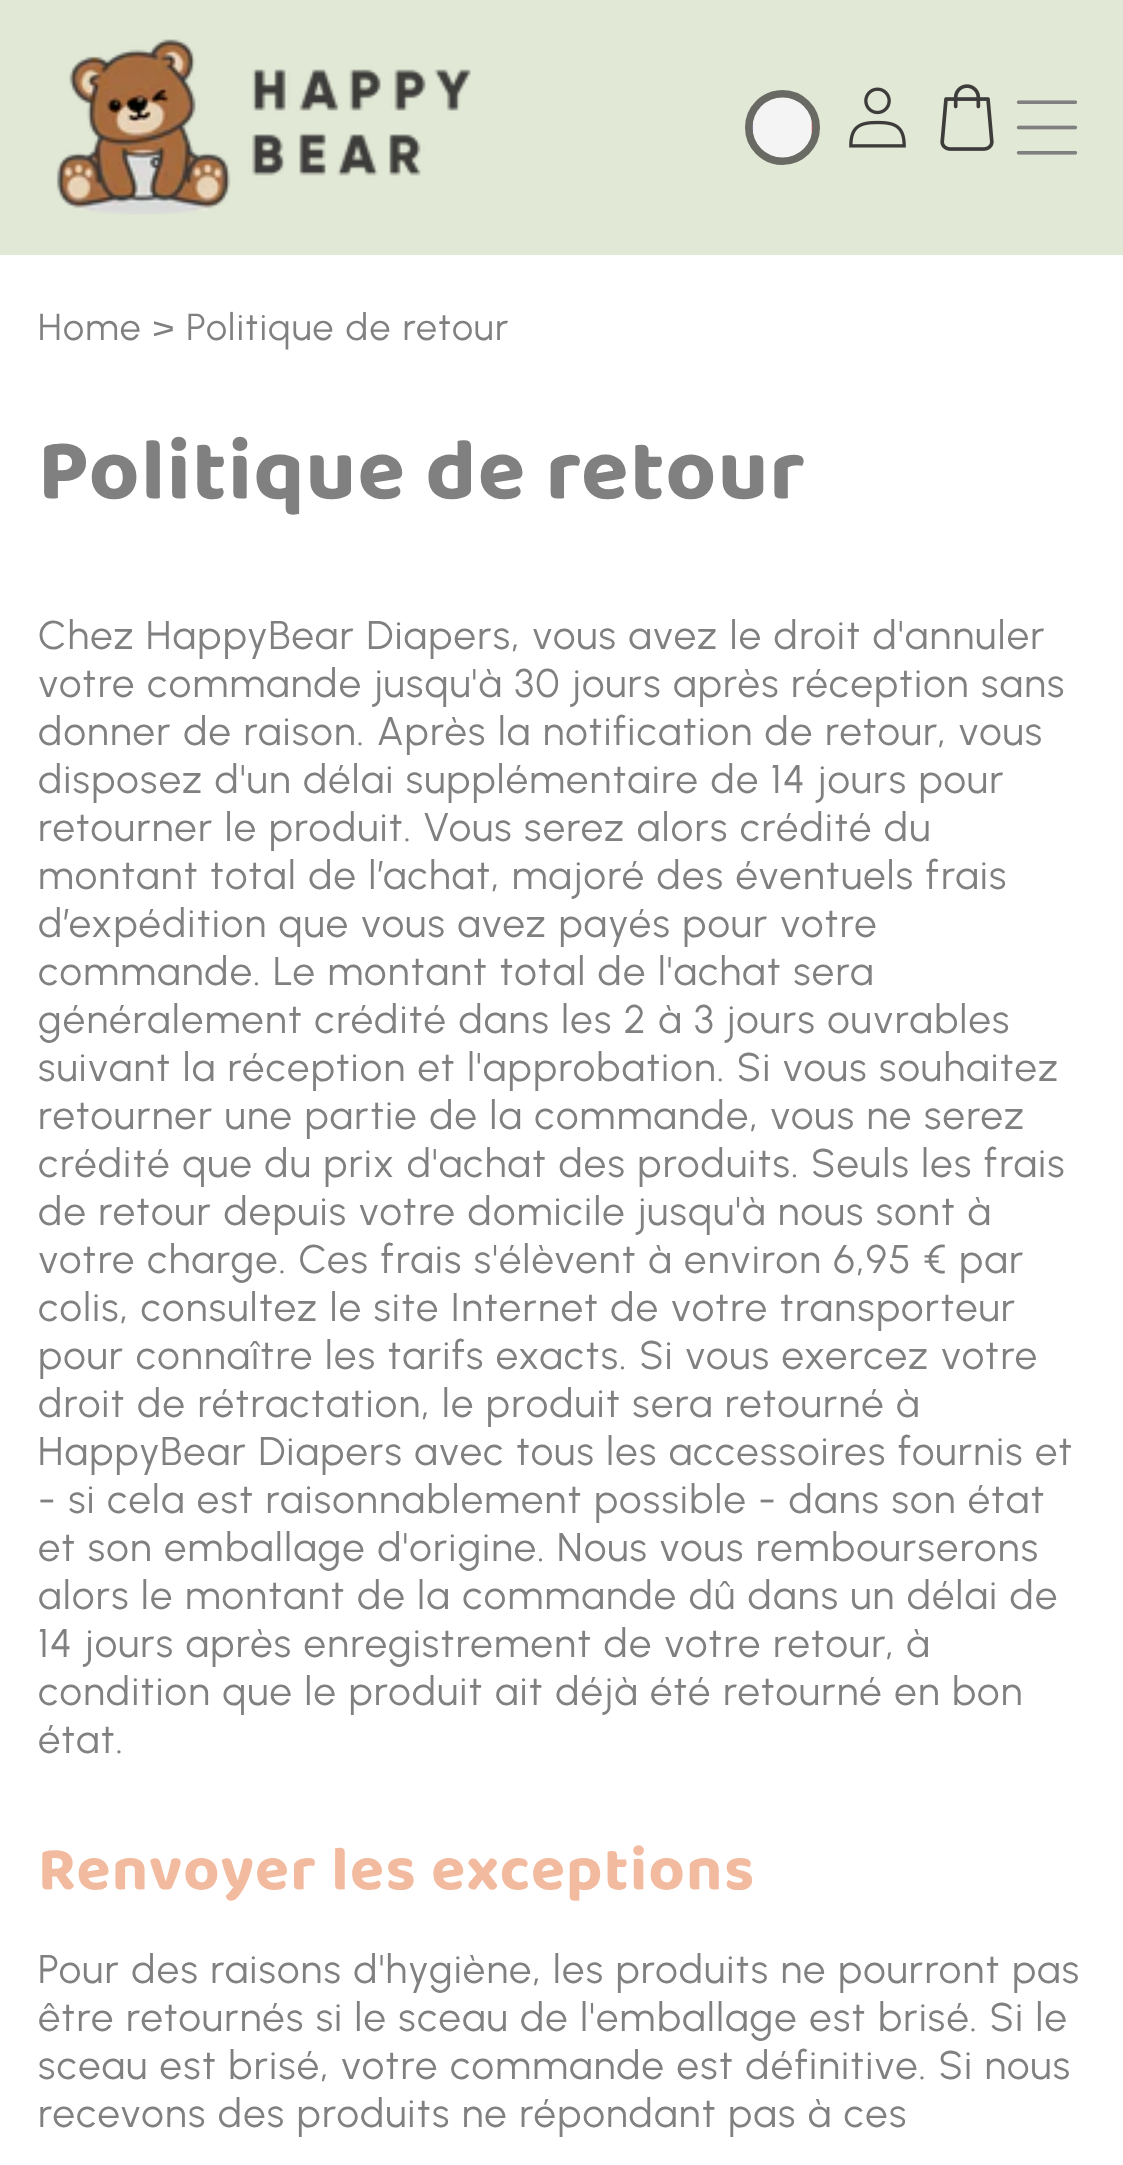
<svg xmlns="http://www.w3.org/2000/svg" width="1123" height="2165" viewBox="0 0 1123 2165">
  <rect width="100%" height="100%" fill="#ffffff"/>
  <rect x="0" y="0" width="1123" height="255" fill="#e2e8d6"/>
  <image x="56" y="39" width="415" height="176" href="img1.png"/>
  <circle cx="782.5" cy="127.5" r="33.5" fill="none" stroke="#696a64" stroke-width="8"/>
  <image x="752" y="97" width="61" height="61" href="img2.png"/>
  <image x="849" y="87" width="57" height="61" href="img3.png"/>
  <image x="940" y="84" width="54" height="67" href="img4.png"/>
  <image x="1016" y="100" width="62" height="55" href="img5.png"/>
  <text x="38" y="340" font-family="Urbanist" font-size="37.5" letter-spacing="1.5" fill="#808080">Home &gt; Politique de retour</text>
  <text x="38" y="498" font-family="'Baloo 2'" font-size="87.5" font-weight="bold" letter-spacing="1.5" fill="#808080">Politique de retour</text>
  <text x="38" y="649" font-family="Urbanist" font-size="40" letter-spacing="1.5" fill="#808080">Chez HappyBear Diapers, vous avez le droit d'annuler</text>
  <text x="38" y="697" font-family="Urbanist" font-size="40" letter-spacing="1.5" fill="#808080">votre commande jusqu'à 30 jours après réception sans</text>
  <text x="38" y="745" font-family="Urbanist" font-size="40" letter-spacing="1.5" fill="#808080">donner de raison. Après la notification de retour, vous</text>
  <text x="38" y="793" font-family="Urbanist" font-size="40" letter-spacing="1.5" fill="#808080">disposez d'un délai supplémentaire de 14 jours pour</text>
  <text x="38" y="841" font-family="Urbanist" font-size="40" letter-spacing="1.5" fill="#808080">retourner le produit. Vous serez alors crédité du</text>
  <text x="38" y="889" font-family="Urbanist" font-size="40" letter-spacing="1.5" fill="#808080">montant total de l’achat, majoré des éventuels frais</text>
  <text x="38" y="937" font-family="Urbanist" font-size="40" letter-spacing="1.5" fill="#808080">d’expédition que vous avez payés pour votre</text>
  <text x="38" y="985" font-family="Urbanist" font-size="40" letter-spacing="1.5" fill="#808080">commande. Le montant total de l'achat sera</text>
  <text x="38" y="1033" font-family="Urbanist" font-size="40" letter-spacing="1.5" fill="#808080">généralement crédité dans les 2 à 3 jours ouvrables</text>
  <text x="38" y="1081" font-family="Urbanist" font-size="40" letter-spacing="1.5" fill="#808080">suivant la réception et l'approbation. Si vous souhaitez</text>
  <text x="38" y="1129" font-family="Urbanist" font-size="40" letter-spacing="1.5" fill="#808080">retourner une partie de la commande, vous ne serez</text>
  <text x="38" y="1177" font-family="Urbanist" font-size="40" letter-spacing="1.5" fill="#808080">crédité que du prix d'achat des produits. Seuls les frais</text>
  <text x="38" y="1225" font-family="Urbanist" font-size="40" letter-spacing="1.5" fill="#808080">de retour depuis votre domicile jusqu'à nous sont à</text>
  <text x="38" y="1273" font-family="Urbanist" font-size="40" letter-spacing="1.5" fill="#808080">votre charge. Ces frais s'élèvent à environ 6,95 € par</text>
  <text x="38" y="1321" font-family="Urbanist" font-size="40" letter-spacing="1.5" fill="#808080">colis, consultez le site Internet de votre transporteur</text>
  <text x="38" y="1369" font-family="Urbanist" font-size="40" letter-spacing="1.5" fill="#808080">pour connaître les tarifs exacts. Si vous exercez votre</text>
  <text x="38" y="1417" font-family="Urbanist" font-size="40" letter-spacing="1.5" fill="#808080">droit de rétractation, le produit sera retourné à</text>
  <text x="38" y="1465" font-family="Urbanist" font-size="40" letter-spacing="1.5" fill="#808080">HappyBear Diapers avec tous les accessoires fournis et</text>
  <text x="38" y="1513" font-family="Urbanist" font-size="40" letter-spacing="1.5" fill="#808080">- si cela est raisonnablement possible - dans son état</text>
  <text x="38" y="1561" font-family="Urbanist" font-size="40" letter-spacing="1.5" fill="#808080">et son emballage d'origine. Nous vous rembourserons</text>
  <text x="38" y="1609" font-family="Urbanist" font-size="40" letter-spacing="1.5" fill="#808080">alors le montant de la commande dû dans un délai de</text>
  <text x="38" y="1657" font-family="Urbanist" font-size="40" letter-spacing="1.5" fill="#808080">14 jours après enregistrement de votre retour, à</text>
  <text x="38" y="1705" font-family="Urbanist" font-size="40" letter-spacing="1.5" fill="#808080">condition que le produit ait déjà été retourné en bon</text>
  <text x="38" y="1753" font-family="Urbanist" font-size="40" letter-spacing="1.5" fill="#808080">état.</text>
  <text x="38" y="1889" font-family="'Baloo 2'" font-size="62.5" font-weight="bold" letter-spacing="1.5" fill="#f2ba9e">Renvoyer les exceptions</text>
  <text x="38" y="1983" font-family="Urbanist" font-size="40" letter-spacing="1.5" fill="#808080">Pour des raisons d'hygiène, les produits ne pourront pas</text>
  <text x="38" y="2031" font-family="Urbanist" font-size="40" letter-spacing="1.5" fill="#808080">être retournés si le sceau de l'emballage est brisé. Si le</text>
  <text x="38" y="2079" font-family="Urbanist" font-size="40" letter-spacing="1.5" fill="#808080">sceau est brisé, votre commande est définitive. Si nous</text>
  <text x="38" y="2127" font-family="Urbanist" font-size="40" letter-spacing="1.5" fill="#808080">recevons des produits ne répondant pas à ces</text>
</svg>
